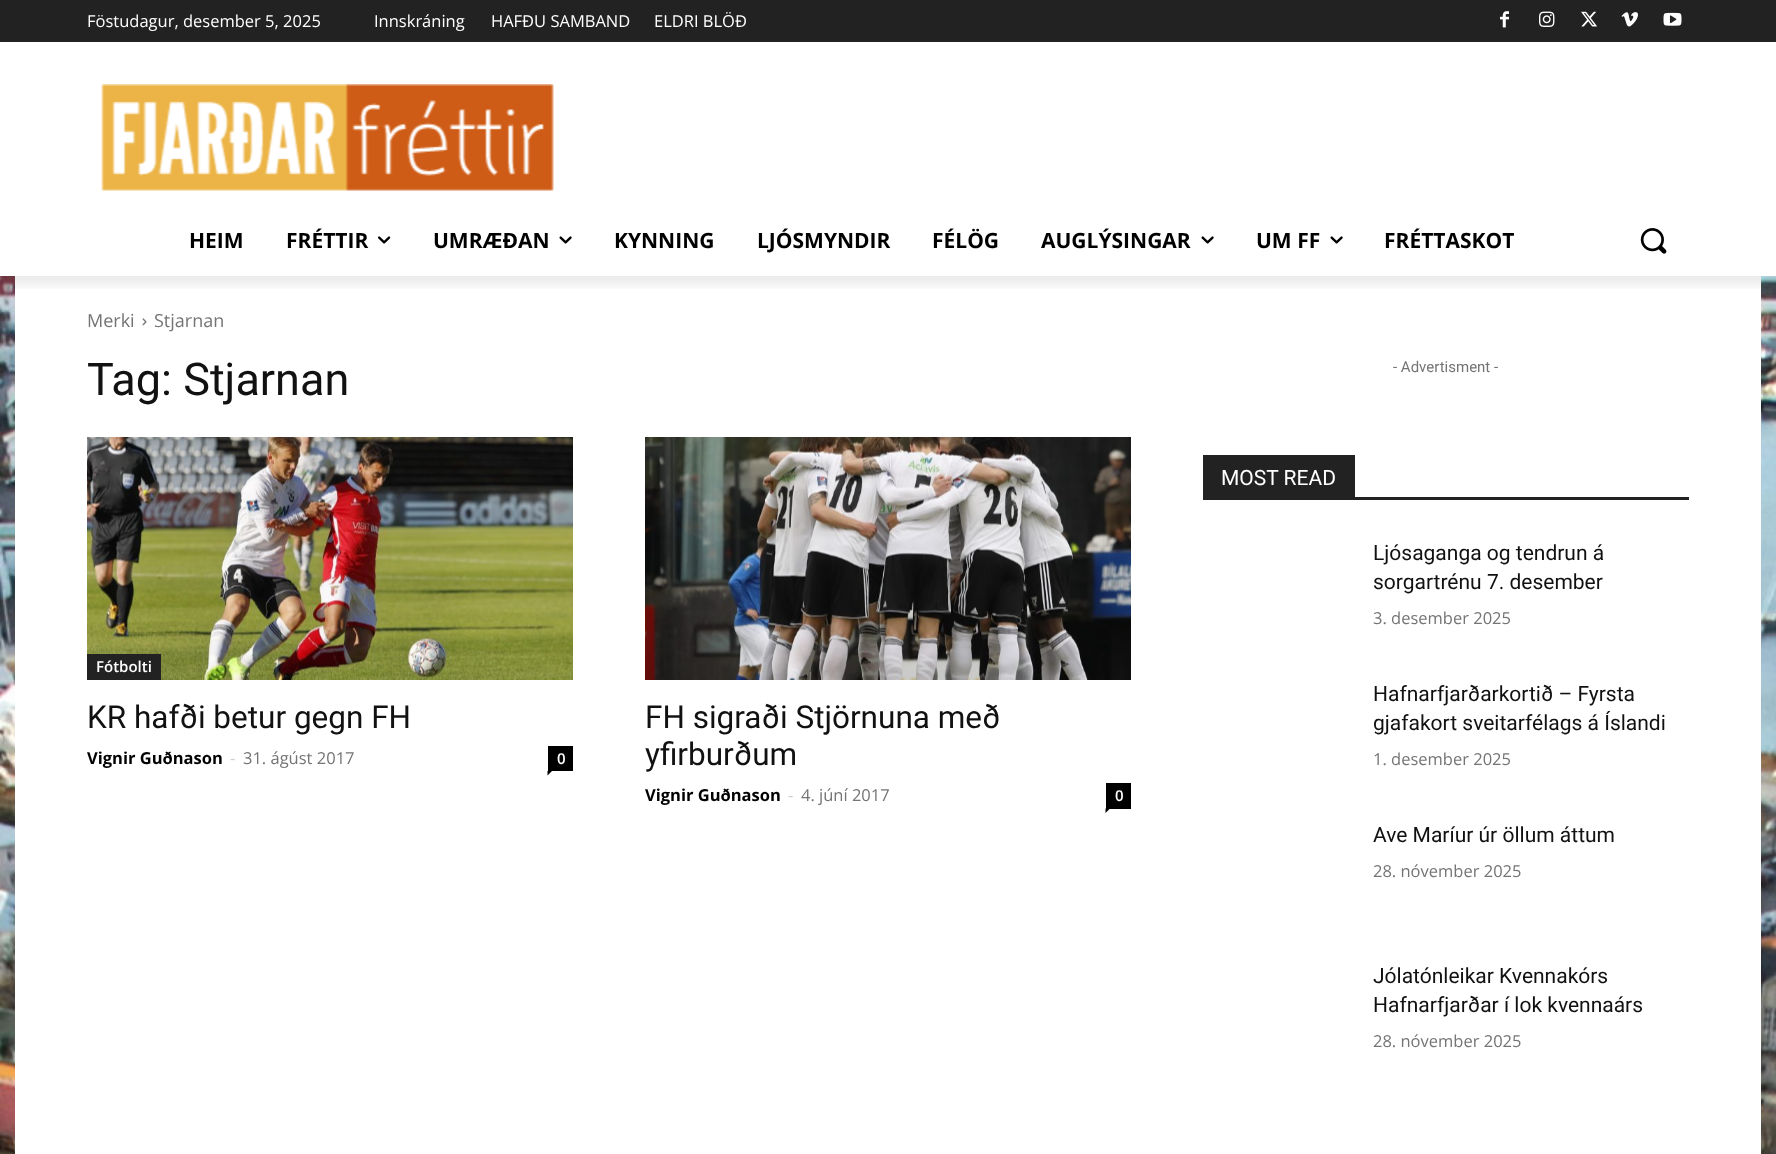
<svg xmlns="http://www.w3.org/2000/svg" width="1776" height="1154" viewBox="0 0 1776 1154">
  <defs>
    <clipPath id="clip1"><rect x="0" y="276" width="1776" height="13"/></clipPath>
    <filter id="blur1" x="-50%" y="-200%" width="200%" height="500%"><feGaussianBlur stdDeviation="6"/></filter>
  </defs>
  <rect width="100%" height="100%" fill="#ffffff"/>
  <image x="0" y="276" width="1776" height="878" href="img1.png"/>
  <rect x="0" y="0" width="1776" height="42" fill="#222222"/>
  <image x="1500" y="11" width="9" height="17" href="img2.png"/>
  <image x="1539" y="11" width="16" height="16" href="img3.png"/>
  <image x="1581" y="11" width="16" height="16" href="img4.png"/>
  <image x="1621" y="12" width="17" height="15" href="img5.png"/>
  <image x="1663" y="12" width="19" height="14" href="img6.png"/>
  <image x="101" y="84" width="453" height="107" href="img7.png"/>
  <rect x="15" y="276" width="1746" height="878" fill="#ffffff"/>
  <g clip-path="url(#clip1)">
    <rect x="0" y="9" width="1776" height="276" fill="#000000" fill-opacity="0.08" filter="url(#blur1)"/>
  </g>
  <text x="87" y="27" font-family="Open Sans" font-size="16.5" fill="#ffffff">Föstudagur, desember 5, 2025</text>
  <text x="374" y="27" font-family="Open Sans" font-size="16.5" fill="#ffffff">Innskráning</text>
  <text x="491" y="27" font-family="Open Sans" font-size="16.5" fill="#ffffff">HAFÐU SAMBAND</text>
  <text x="654" y="27" font-family="Open Sans" font-size="16.5" fill="#ffffff">ELDRI BLÖÐ</text>
  <text x="189" y="248" font-family="Open Sans" font-size="21" font-weight="bold" fill="#000000">HEIM</text>
  <text x="286" y="248" font-family="Open Sans" font-size="21" font-weight="bold" fill="#000000">FRÉTTIR</text>
  <image x="378" y="236" width="13" height="8" href="img8.png"/>
  <text x="433" y="248" font-family="Open Sans" font-size="21" font-weight="bold" fill="#000000">UMRÆÐAN</text>
  <image x="559" y="236" width="13" height="8" href="img9.png"/>
  <text x="614" y="248" font-family="Open Sans" font-size="21" font-weight="bold" fill="#000000">KYNNING</text>
  <text x="757" y="248" font-family="Open Sans" font-size="21" font-weight="bold" fill="#000000">LJÓSMYNDIR</text>
  <text x="932" y="248" font-family="Open Sans" font-size="21" font-weight="bold" fill="#000000">FÉLÖG</text>
  <text x="1041" y="248" font-family="Open Sans" font-size="21" font-weight="bold" fill="#000000">AUGLÝSINGAR</text>
  <image x="1201" y="236" width="13" height="8" href="img9.png"/>
  <text x="1256" y="248" font-family="Open Sans" font-size="21" font-weight="bold" fill="#000000">UM FF</text>
  <image x="1330" y="236" width="13" height="8" href="img9.png"/>
  <text x="1384" y="248" font-family="Open Sans" font-size="21" font-weight="bold" fill="#000000">FRÉTTASKOT</text>
  <image x="1640" y="228" width="27" height="26" href="img10.png"/>
  <text x="87" y="327" font-family="Open Sans" font-size="18" fill="#747474">Merki</text>
  <image x="142" y="318" width="5" height="8" href="img11.png"/>
  <text x="154" y="327" font-family="Open Sans" font-size="18" fill="#747474">Stjarnan</text>
  <text x="87" y="395" font-family="Roboto" font-size="45" fill="#111111">Tag: Stjarnan</text>
  <image x="87" y="437" width="486" height="243" href="img12.png"/>
  <rect x="87" y="654" width="74" height="26" fill="#222222"/>
  <text x="96" y="672" font-family="Open Sans" font-size="15" font-weight="600" fill="#ffffff">Fótbolti</text>
  <text x="87" y="728" font-family="Roboto" font-size="31.5" fill="#111111">KR hafði betur gegn FH</text>
  <text x="87" y="764" font-family="Open Sans" font-size="16.5" font-weight="bold" fill="#000000">Vignir Guðnason</text>
  <text x="230" y="764" font-family="Open Sans" font-size="16.5" fill="#cccccc">-</text>
  <text x="243" y="764" font-family="Open Sans" font-size="16.5" fill="#747474">31. ágúst 2017</text>
  <rect x="548" y="746" width="25" height="25" fill="#000000"/>
  <text x="557" y="764" font-family="Open Sans" font-size="15" font-weight="600" fill="#ffffff">0</text>
  <path d="M547.5 771H552L547.5 775.5Z" fill="#000000"/>
  <image x="645" y="437" width="486" height="243" href="img13.png"/>
  <text x="645" y="728" font-family="Roboto" font-size="31.5" fill="#111111">FH sigraði Stjörnuna með</text>
  <text x="645" y="765" font-family="Roboto" font-size="31.5" fill="#111111">yfirburðum</text>
  <text x="645" y="801" font-family="Open Sans" font-size="16.5" font-weight="bold" fill="#000000">Vignir Guðnason</text>
  <text x="788" y="801" font-family="Open Sans" font-size="16.5" fill="#cccccc">-</text>
  <text x="801" y="801" font-family="Open Sans" font-size="16.5" fill="#747474">4. júní 2017</text>
  <rect x="1106" y="783" width="25" height="26" fill="#000000"/>
  <text x="1115" y="801" font-family="Open Sans" font-size="15" font-weight="600" fill="#ffffff">0</text>
  <path d="M1105.5 808.5H1110L1105.5 813Z" fill="#000000"/>
  <text x="1393" y="372" font-family="Roboto" font-size="15" fill="#747474">- Advertisment -</text>
  <rect x="1203" y="497" width="486" height="3" fill="#222222"/>
  <rect x="1203" y="455" width="152" height="42" fill="#222222"/>
  <text x="1221" y="485" font-family="Roboto" font-size="21" fill="#ffffff">MOST READ</text>
  <text x="1373" y="560" font-family="Roboto" font-size="21" fill="#111111">Ljósaganga og tendrun á</text>
  <text x="1373" y="589" font-family="Roboto" font-size="21" fill="#111111">sorgartrénu 7. desember</text>
  <text x="1373" y="624" font-family="Open Sans" font-size="16.5" fill="#747474">3. desember 2025</text>
  <text x="1373" y="701" font-family="Roboto" font-size="21" fill="#111111">Hafnarfjarðarkortið – Fyrsta</text>
  <text x="1373" y="730" font-family="Roboto" font-size="21" fill="#111111">gjafakort sveitarfélags á Íslandi</text>
  <text x="1373" y="765" font-family="Open Sans" font-size="16.5" fill="#747474">1. desember 2025</text>
  <text x="1373" y="842" font-family="Roboto" font-size="21" fill="#111111">Ave Maríur úr öllum áttum</text>
  <text x="1373" y="877" font-family="Open Sans" font-size="16.5" fill="#747474">28. nóvember 2025</text>
  <text x="1373" y="983" font-family="Roboto" font-size="21" fill="#111111">Jólatónleikar Kvennakórs</text>
  <text x="1373" y="1012" font-family="Roboto" font-size="21" fill="#111111">Hafnarfjarðar í lok kvennaárs</text>
  <text x="1373" y="1047" font-family="Open Sans" font-size="16.5" fill="#747474">28. nóvember 2025</text>
</svg>
